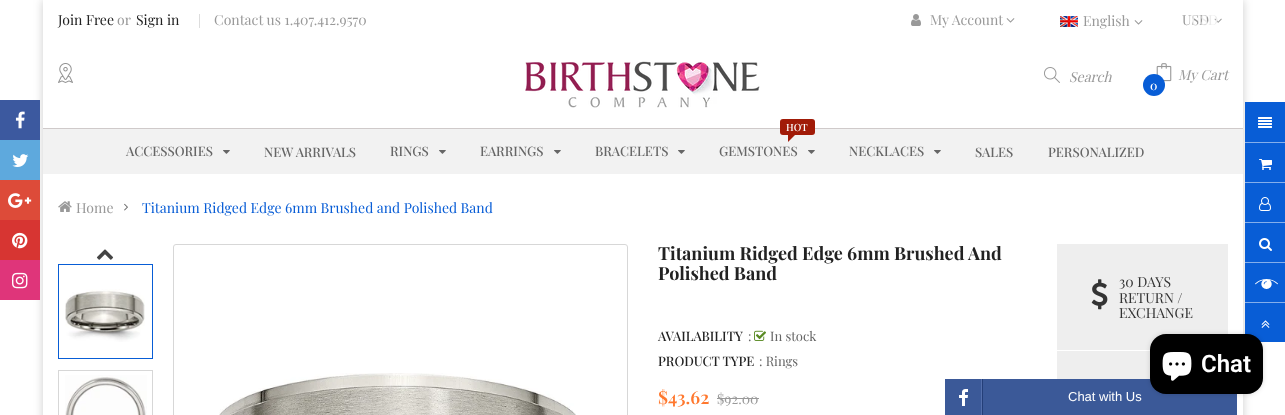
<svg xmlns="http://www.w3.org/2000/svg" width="1285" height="415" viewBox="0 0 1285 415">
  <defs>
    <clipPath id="clip1"><path d="M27 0H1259V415H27ZM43 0H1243V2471H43Z" clip-rule="evenodd"/></clipPath>
    <filter id="blur1" x="-50%" y="-200%" width="200%" height="500%"><feGaussianBlur stdDeviation="5"/></filter>
    <filter id="blur2" x="-50%" y="-200%" width="200%" height="500%"><feGaussianBlur stdDeviation="2.5"/></filter>
  </defs>
  <rect width="100%" height="100%" fill="#ffffff"/>
  <g clip-path="url(#clip1)">
    <rect x="43" y="0" width="1200" height="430" fill="#000000" fill-opacity="0.2" filter="url(#blur1)"/>
  </g>
  <rect x="0" y="100" width="40" height="40" fill="#3c599f"/>
  <image x="15" y="111" width="10" height="18" href="img1.png"/>
  <rect x="0" y="140" width="40" height="40" fill="#5ea9dd"/>
  <image x="12" y="154" width="17" height="13" href="img2.png"/>
  <rect x="0" y="180" width="40" height="40" fill="#dd4b39"/>
  <image x="8" y="193" width="24" height="15" href="img3.png"/>
  <rect x="0" y="220" width="40" height="40" fill="#d73532"/>
  <image x="12" y="232" width="16" height="17" href="img4.png"/>
  <rect x="0" y="260" width="40" height="40" fill="#df357a"/>
  <image x="12" y="272" width="16" height="17" href="img5.png"/>
  <text x="58" y="25" font-family="Playfair Display" font-size="14" fill="#222222">Join Free</text>
  <text x="117" y="25" font-family="Playfair Display" font-size="14" fill="#999999">or</text>
  <text x="136" y="25" font-family="Playfair Display" font-size="14" fill="#222222">Sign in</text>
  <rect x="199" y="14" width="1" height="14" fill="#dddddd"/>
  <text x="214" y="25" font-family="Playfair Display" font-size="14" fill="#999999">Contact us 1.407.412.9570</text>
  <image x="911" y="14" width="10" height="12" href="img6.png"/>
  <text x="930" y="25" font-family="Playfair Display" font-size="14" fill="#999999">My Account</text>
  <image x="1006" y="18" width="9" height="5" href="img7.png"/>
  <image x="1060" y="16" width="18" height="11" href="img8.png"/>
  <text x="1083" y="26" font-family="Playfair Display" font-size="14" fill="#999999">English</text>
  <image x="1134" y="20" width="9" height="5" href="img7.png"/>
  <text x="1182" y="25" font-family="Playfair Display" font-size="14" fill="#999999">USD</text>
  <image x="1214" y="18" width="8" height="5" href="img9.png"/>
  <text x="1191" y="25" font-family="Playfair Display" font-size="14" fill="#ececec">USD</text>
  <rect x="43" y="128" width="1200" height="1" fill="#cfcaca"/>
  <image x="58" y="63" width="15" height="20" href="img10.png"/>
  <image x="525" y="61" width="235" height="47" href="img11.png"/>
  <image x="1044" y="67" width="16" height="16" href="img12.png"/>
  <text x="1069" y="82" font-family="Playfair Display" font-size="14" font-style="italic" fill="#999999">Search</text>
  <text x="1178" y="80" font-family="Playfair Display" font-size="14" font-style="italic" fill="#999999">My Cart</text>
  <image x="1156" y="63" width="16" height="19" href="img13.png"/>
  <circle cx="1154" cy="85" r="11" fill="#085dd6"/>
  <text x="1150" y="90" font-family="Playfair Display" font-size="12" font-weight="500" fill="#ffffff">0</text>
  <rect x="43" y="129" width="1200" height="45" fill="#f2f2f2"/>
  <text x="126" y="156" font-family="Playfair Display" font-size="13" font-weight="500" fill="#666666">ACCESSORIES</text>
  <image x="223" y="150" width="7" height="4" href="img14.png"/>
  <text x="264" y="157" font-family="Playfair Display" font-size="13" font-weight="500" fill="#666666">NEW ARRIVALS</text>
  <text x="390" y="156" font-family="Playfair Display" font-size="13" font-weight="500" fill="#666666">RINGS</text>
  <image x="439" y="150" width="7" height="4" href="img14.png"/>
  <text x="480" y="156" font-family="Playfair Display" font-size="13" font-weight="500" fill="#666666">EARRINGS</text>
  <image x="554" y="150" width="7" height="4" href="img14.png"/>
  <text x="595" y="156" font-family="Playfair Display" font-size="13" font-weight="500" fill="#666666">BRACELETS</text>
  <image x="678" y="150" width="7" height="4" href="img14.png"/>
  <rect x="780" y="119" width="35" height="16" rx="3" fill="#a11b08"/>
  <text x="786" y="131" font-family="Playfair Display" font-size="10" font-weight="500" fill="#ffffff">HOT</text>
  <path d="M788 135H795L788 142Z" fill="#a11b08"/>
  <text x="719" y="156" font-family="Playfair Display" font-size="13" font-weight="500" fill="#666666">GEMSTONES</text>
  <image x="808" y="150" width="7" height="4" href="img14.png"/>
  <text x="849" y="156" font-family="Playfair Display" font-size="13" font-weight="500" fill="#666666">NECKLACES</text>
  <image x="934" y="150" width="7" height="4" href="img14.png"/>
  <text x="975" y="157" font-family="Playfair Display" font-size="13" font-weight="500" fill="#666666">SALES</text>
  <text x="1048" y="157" font-family="Playfair Display" font-size="13" font-weight="500" fill="#666666">PERSONALIZED</text>
  <image x="58" y="201" width="14" height="11" href="img15.png"/>
  <text x="76" y="213" font-family="Playfair Display" font-size="14" fill="#999999">Home</text>
  <image x="124" y="203" width="4" height="8" href="img16.png"/>
  <text x="142" y="213" font-family="Playfair Display" font-size="14" fill="#085dd6">Titanium Ridged Edge 6mm Brushed and Polished Band</text>
  <image x="96" y="249" width="18" height="11" href="img17.png"/>
  <rect x="58.5" y="264.5" width="94" height="94" fill="none" stroke="#085dd6"/>
  <image x="65" y="289" width="80" height="53" href="img18.png"/>
  <rect x="58.5" y="370.5" width="94" height="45" fill="none" stroke="#d7d7d7"/>
  <image x="65" y="375" width="82" height="40" href="img19.png"/>
  <rect x="173.5" y="244.5" width="454" height="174" rx="2.5" fill="none" stroke="#d7d7d7"/>
  <image x="219" y="373" width="357" height="42" href="img20.png"/>
  <text x="658" y="260" font-family="Playfair Display" font-size="18" font-weight="bold" fill="#222222">Titanium Ridged Edge 6mm Brushed And</text>
  <text x="658" y="280" font-family="Playfair Display" font-size="18" font-weight="bold" fill="#222222">Polished Band</text>
  <text x="658" y="341" font-family="Playfair Display" font-size="13" font-weight="500" fill="#222222">AVAILABILITY</text>
  <text x="748" y="341" font-family="Playfair Display" font-size="13" fill="#666666">:</text>
  <image x="754" y="330" width="12" height="11" href="img21.png"/>
  <text x="770" y="341" font-family="Playfair Display" font-size="13" fill="#666666">In stock</text>
  <text x="658" y="366" font-family="Playfair Display" font-size="13" font-weight="500" fill="#222222">PRODUCT TYPE</text>
  <text x="759" y="366" font-family="Playfair Display" font-size="13" fill="#666666">: Rings</text>
  <text x="658" y="404" font-family="Playfair Display" font-size="18" font-weight="600" fill="#ff782e">$43.62</text>
  <text x="717" y="404" font-family="Playfair Display" font-size="14" fill="#999999">$92.00</text>
  <rect x="717" y="398" width="42" height="1" fill="#999999"/>
  <rect x="1057" y="244" width="171" height="135" fill="#eeeeee"/>
  <rect x="1057" y="350" width="93" height="1" fill="#ffffff"/>
  <image x="1091" y="279" width="17" height="31" href="img22.png"/>
  <text x="1119" y="287" font-family="Playfair Display" font-size="14" fill="#333333">30 DAYS</text>
  <text x="1119" y="303" font-family="Playfair Display" font-size="14" fill="#333333">RETURN /</text>
  <text x="1119" y="318" font-family="Playfair Display" font-size="14" fill="#333333">EXCHANGE</text>
  <rect x="1245" y="102" width="40" height="40" fill="#085dd6"/>
  <image x="1258" y="117" width="14" height="11" href="img23.png"/>
  <rect x="1245" y="143" width="40" height="39" fill="#085dd6"/>
  <rect x="1245" y="142" width="40" height="1" fill="#84aeeb"/>
  <image x="1259" y="159" width="13" height="11" href="img24.png"/>
  <rect x="1245" y="183" width="40" height="39" fill="#085dd6"/>
  <rect x="1245" y="182" width="40" height="1" fill="#84aeeb"/>
  <image x="1259" y="197" width="12" height="14" href="img25.png"/>
  <rect x="1245" y="223" width="40" height="39" fill="#085dd6"/>
  <rect x="1245" y="222" width="40" height="1" fill="#84aeeb"/>
  <image x="1259" y="238" width="13" height="13" href="img26.png"/>
  <rect x="1245" y="263" width="40" height="39" fill="#085dd6"/>
  <rect x="1245" y="262" width="40" height="1" fill="#84aeeb"/>
  <image x="1255" y="279" width="23" height="10" href="img27.png"/>
  <rect x="1245" y="303" width="40" height="39" fill="#085dd6"/>
  <rect x="1245" y="302" width="40" height="1" fill="#84aeeb"/>
  <image x="1261" y="320" width="9" height="8" href="img28.png"/>
  <rect x="945" y="379" width="292" height="36" fill="#3b5998"/>
  <image x="959" y="379" width="24" height="36" href="img29.png"/>
  <text x="1068" y="401" font-family="Liberation Sans" font-size="13" fill="#ffffff">Chat with Us</text>
  <rect x="1150" y="334" width="113" height="60" rx="16" fill="#000000" fill-opacity="0.15" filter="url(#blur2)"/>
  <rect x="1150" y="334" width="113" height="60" rx="16" fill="#000000"/>
  <image x="1162" y="352" width="30" height="29" href="img30.png"/>
  <text x="1201" y="372" font-family="Roboto" font-size="24" font-weight="600" fill="#ffffff">Chat</text>
</svg>
